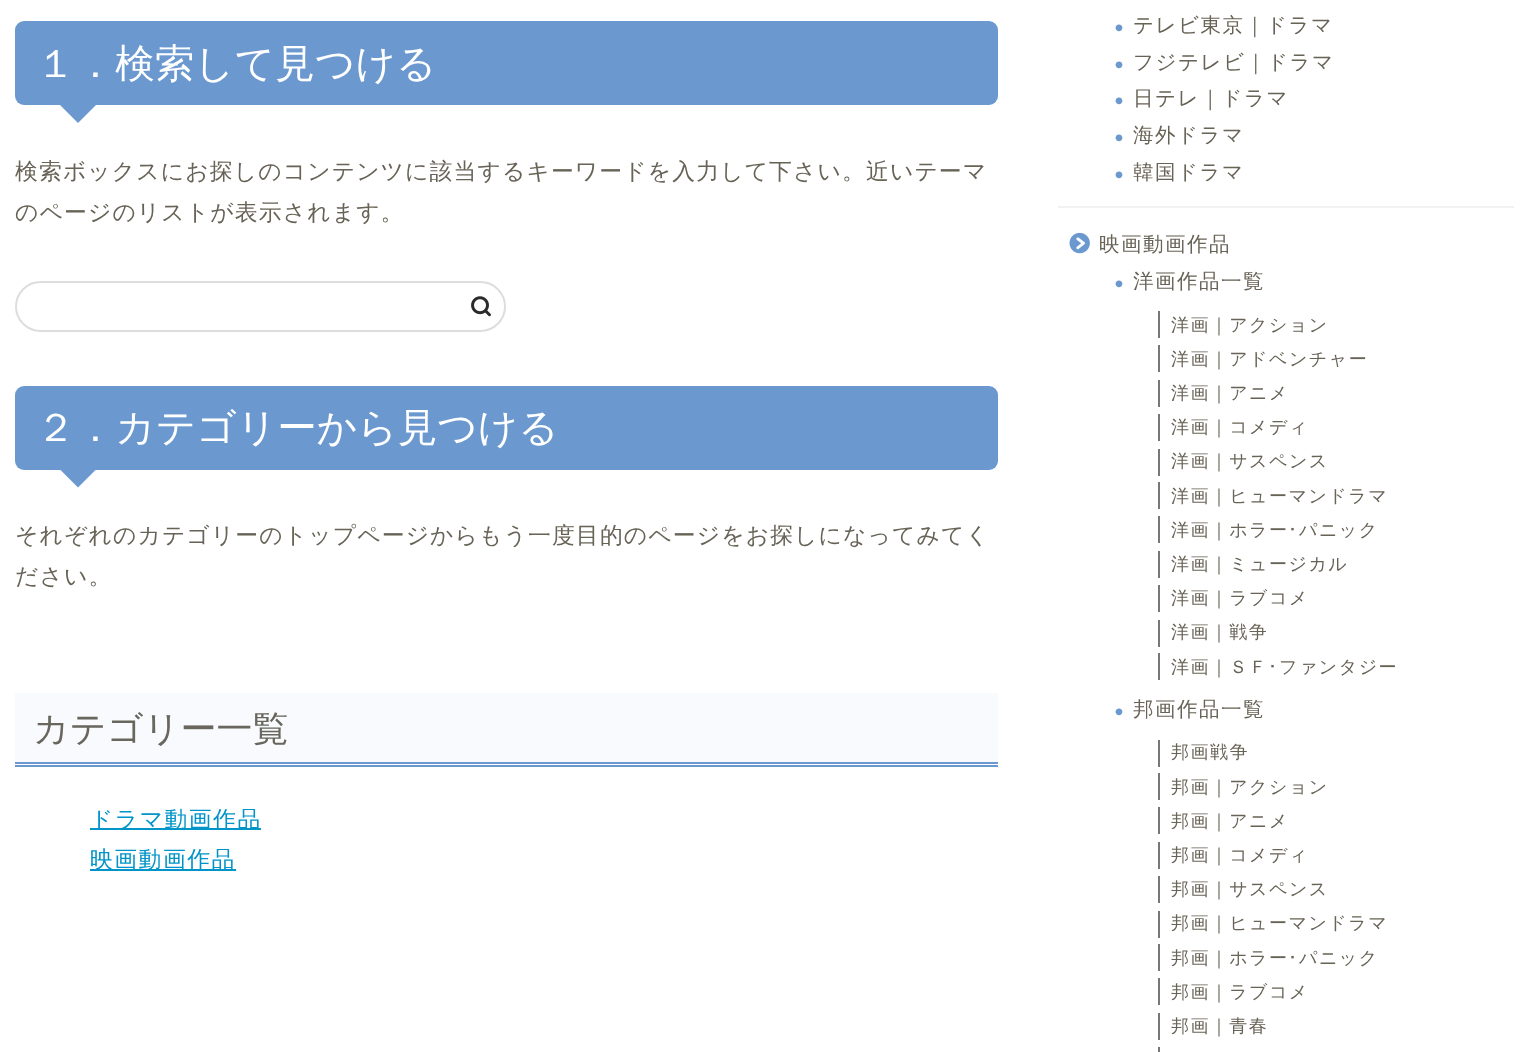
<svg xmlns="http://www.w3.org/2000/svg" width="1532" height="1052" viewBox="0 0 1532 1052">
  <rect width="100%" height="100%" fill="#ffffff"/>
  <rect x="15" y="693" width="983" height="69" fill="#f8fafd"/>
  <rect x="15" y="21" width="983" height="84" rx="9" fill="#6b99cf"/>
  <text x="36" y="77" font-family="WenQuanYi Zen Hei" font-size="39.6" font-weight="500" fill="#ffffff">１．検索して見つける</text>
  <path d="M60 105H96L78 123Z" fill="#6b99cf"/>
  <text x="15" y="179" font-family="WenQuanYi Zen Hei" font-size="22.8" font-weight="500" letter-spacing="1.15" fill="#686357">検索ボックスにお探しのコンテンツに該当するキーワードを入力して下さい。近いテーマ</text>
  <text x="15" y="220" font-family="WenQuanYi Zen Hei" font-size="22.8" font-weight="500" letter-spacing="1.15" fill="#686357">のページのリストが表示されます。</text>
  <rect x="16" y="282" width="489" height="49" rx="24.5" fill="none" stroke="#dddddd" stroke-width="2"/>
  <image x="471" y="296" width="20" height="21" href="img1.png"/>
  <rect x="15" y="386" width="983" height="84" rx="9" fill="#6b99cf"/>
  <text x="36" y="441" font-family="WenQuanYi Zen Hei" font-size="39.6" font-weight="500" fill="#ffffff">２．カテゴリーから見つける</text>
  <path d="M60 469.5H96L78 487.5Z" fill="#6b99cf"/>
  <text x="15" y="543" font-family="WenQuanYi Zen Hei" font-size="22.8" font-weight="500" letter-spacing="1.15" fill="#686357">それぞれのカテゴリーのトップページからもう一度目的のページをお探しになってみてく</text>
  <text x="15" y="584" font-family="WenQuanYi Zen Hei" font-size="22.8" font-weight="500" letter-spacing="1.15" fill="#686357">ださい。</text>
  <rect x="15" y="762" width="983" height="2" fill="#6b99cf"/>
  <rect x="15" y="765" width="983" height="2" fill="#6b99cf"/>
  <text x="33" y="741" font-family="WenQuanYi Zen Hei" font-size="36" font-weight="500" fill="#68665d">カテゴリー一覧</text>
  <rect x="90" y="828" width="171" height="2" fill="#0094c8"/>
  <text x="90" y="827" font-family="WenQuanYi Zen Hei" font-size="22.8" font-weight="500" letter-spacing="1.5" fill="#0094c8">ドラマ動画作品</text>
  <rect x="90" y="869" width="146" height="2" fill="#0094c8"/>
  <text x="90" y="867" font-family="WenQuanYi Zen Hei" font-size="22.8" font-weight="500" letter-spacing="1.5" fill="#0094c8">映画動画作品</text>
  <rect x="1058" y="206" width="456" height="2" fill="#f2f2f2"/>
  <text x="1100" y="41" font-family="WenQuanYi Zen Hei" font-size="36" font-weight="bold" letter-spacing="1.5" fill="#6b99cf">・</text>
  <text x="1133" y="32" font-family="WenQuanYi Zen Hei" font-size="20.5" font-weight="500" letter-spacing="1.5" fill="#686357">テレビ東京｜ドラマ</text>
  <text x="1100" y="78" font-family="WenQuanYi Zen Hei" font-size="36" font-weight="bold" letter-spacing="1.5" fill="#6b99cf">・</text>
  <text x="1133" y="69" font-family="WenQuanYi Zen Hei" font-size="20.5" font-weight="500" letter-spacing="1.5" fill="#686357">フジテレビ｜ドラマ</text>
  <text x="1100" y="114" font-family="WenQuanYi Zen Hei" font-size="36" font-weight="bold" letter-spacing="1.5" fill="#6b99cf">・</text>
  <text x="1133" y="105" font-family="WenQuanYi Zen Hei" font-size="20.5" font-weight="500" letter-spacing="1.5" fill="#686357">日テレ｜ドラマ</text>
  <text x="1100" y="151" font-family="WenQuanYi Zen Hei" font-size="36" font-weight="bold" letter-spacing="1.5" fill="#6b99cf">・</text>
  <text x="1133" y="142" font-family="WenQuanYi Zen Hei" font-size="20.5" font-weight="500" letter-spacing="1.5" fill="#686357">海外ドラマ</text>
  <text x="1100" y="188" font-family="WenQuanYi Zen Hei" font-size="36" font-weight="bold" letter-spacing="1.5" fill="#6b99cf">・</text>
  <text x="1133" y="179" font-family="WenQuanYi Zen Hei" font-size="20.5" font-weight="500" letter-spacing="1.5" fill="#686357">韓国ドラマ</text>
  <image x="1069" y="232" width="21" height="22" href="img2.png"/>
  <text x="1099" y="251" font-family="WenQuanYi Zen Hei" font-size="20.5" font-weight="500" letter-spacing="1.5" fill="#686357">映画動画作品</text>
  <text x="1100" y="297" font-family="WenQuanYi Zen Hei" font-size="36" font-weight="bold" letter-spacing="1.5" fill="#6b99cf">・</text>
  <text x="1133" y="288" font-family="WenQuanYi Zen Hei" font-size="20.5" font-weight="500" letter-spacing="1.5" fill="#686357">洋画作品一覧</text>
  <rect x="1158" y="311" width="2" height="27" fill="#777777"/>
  <text x="1171" y="331" font-family="WenQuanYi Zen Hei" font-size="18" font-weight="500" letter-spacing="1.5" fill="#686357">洋画｜アクション</text>
  <rect x="1158" y="345" width="2" height="27" fill="#777777"/>
  <text x="1171" y="365" font-family="WenQuanYi Zen Hei" font-size="18" font-weight="500" letter-spacing="1.5" fill="#686357">洋画｜アドベンチャー</text>
  <rect x="1158" y="380" width="2" height="27" fill="#777777"/>
  <text x="1171" y="399" font-family="WenQuanYi Zen Hei" font-size="18" font-weight="500" letter-spacing="1.5" fill="#686357">洋画｜アニメ</text>
  <rect x="1158" y="414" width="2" height="27" fill="#777777"/>
  <text x="1171" y="433" font-family="WenQuanYi Zen Hei" font-size="18" font-weight="500" letter-spacing="1.5" fill="#686357">洋画｜コメディ</text>
  <rect x="1158" y="449" width="2" height="27" fill="#777777"/>
  <text x="1171" y="467" font-family="WenQuanYi Zen Hei" font-size="18" font-weight="500" letter-spacing="1.5" fill="#686357">洋画｜サスペンス</text>
  <rect x="1158" y="482" width="2" height="27" fill="#777777"/>
  <text x="1171" y="502" font-family="WenQuanYi Zen Hei" font-size="18" font-weight="500" letter-spacing="1.5" fill="#686357">洋画｜ヒューマンドラマ</text>
  <rect x="1158" y="516" width="2" height="27" fill="#777777"/>
  <text x="1171" y="536" font-family="WenQuanYi Zen Hei" font-size="18" font-weight="500" letter-spacing="1.5" fill="#686357">洋画｜ホラー</text>
  <text x="1288" y="536" font-family="IPAPGothic" font-size="18" letter-spacing="1.5" fill="#686357">･</text>
  <text x="1299" y="536" font-family="WenQuanYi Zen Hei" font-size="18" font-weight="500" letter-spacing="1.5" fill="#686357">パニック</text>
  <rect x="1158" y="551" width="2" height="27" fill="#777777"/>
  <text x="1171" y="570" font-family="WenQuanYi Zen Hei" font-size="18" font-weight="500" letter-spacing="1.5" fill="#686357">洋画｜ミュージカル</text>
  <rect x="1158" y="585" width="2" height="27" fill="#777777"/>
  <text x="1171" y="604" font-family="WenQuanYi Zen Hei" font-size="18" font-weight="500" letter-spacing="1.5" fill="#686357">洋画｜ラブコメ</text>
  <rect x="1158" y="620" width="2" height="27" fill="#777777"/>
  <text x="1171" y="638" font-family="WenQuanYi Zen Hei" font-size="18" font-weight="500" letter-spacing="1.5" fill="#686357">洋画｜戦争</text>
  <rect x="1158" y="653" width="2" height="27" fill="#777777"/>
  <text x="1171" y="673" font-family="WenQuanYi Zen Hei" font-size="18" font-weight="500" letter-spacing="1.5" fill="#686357">洋画｜ＳＦ</text>
  <text x="1268" y="673" font-family="IPAPGothic" font-size="18" letter-spacing="1.5" fill="#686357">･</text>
  <text x="1279" y="673" font-family="WenQuanYi Zen Hei" font-size="18" font-weight="500" letter-spacing="1.5" fill="#686357">ファンタジー</text>
  <text x="1100" y="725" font-family="WenQuanYi Zen Hei" font-size="36" font-weight="bold" letter-spacing="1.5" fill="#6b99cf">・</text>
  <text x="1133" y="716" font-family="WenQuanYi Zen Hei" font-size="20.5" font-weight="500" letter-spacing="1.5" fill="#686357">邦画作品一覧</text>
  <rect x="1158" y="740" width="2" height="27" fill="#777777"/>
  <text x="1171" y="758" font-family="WenQuanYi Zen Hei" font-size="18" font-weight="500" letter-spacing="1.5" fill="#686357">邦画戦争</text>
  <rect x="1158" y="773" width="2" height="27" fill="#777777"/>
  <text x="1171" y="793" font-family="WenQuanYi Zen Hei" font-size="18" font-weight="500" letter-spacing="1.5" fill="#686357">邦画｜アクション</text>
  <rect x="1158" y="807" width="2" height="27" fill="#777777"/>
  <text x="1171" y="827" font-family="WenQuanYi Zen Hei" font-size="18" font-weight="500" letter-spacing="1.5" fill="#686357">邦画｜アニメ</text>
  <rect x="1158" y="842" width="2" height="27" fill="#777777"/>
  <text x="1171" y="861" font-family="WenQuanYi Zen Hei" font-size="18" font-weight="500" letter-spacing="1.5" fill="#686357">邦画｜コメディ</text>
  <rect x="1158" y="876" width="2" height="27" fill="#777777"/>
  <text x="1171" y="895" font-family="WenQuanYi Zen Hei" font-size="18" font-weight="500" letter-spacing="1.5" fill="#686357">邦画｜サスペンス</text>
  <rect x="1158" y="911" width="2" height="27" fill="#777777"/>
  <text x="1171" y="929" font-family="WenQuanYi Zen Hei" font-size="18" font-weight="500" letter-spacing="1.5" fill="#686357">邦画｜ヒューマンドラマ</text>
  <rect x="1158" y="944" width="2" height="27" fill="#777777"/>
  <text x="1171" y="964" font-family="WenQuanYi Zen Hei" font-size="18" font-weight="500" letter-spacing="1.5" fill="#686357">邦画｜ホラー</text>
  <text x="1288" y="964" font-family="IPAPGothic" font-size="18" letter-spacing="1.5" fill="#686357">･</text>
  <text x="1299" y="964" font-family="WenQuanYi Zen Hei" font-size="18" font-weight="500" letter-spacing="1.5" fill="#686357">パニック</text>
  <rect x="1158" y="978" width="2" height="27" fill="#777777"/>
  <text x="1171" y="998" font-family="WenQuanYi Zen Hei" font-size="18" font-weight="500" letter-spacing="1.5" fill="#686357">邦画｜ラブコメ</text>
  <rect x="1158" y="1013" width="2" height="27" fill="#777777"/>
  <text x="1171" y="1032" font-family="WenQuanYi Zen Hei" font-size="18" font-weight="500" letter-spacing="1.5" fill="#686357">邦画｜青春</text>
  <rect x="1158" y="1047" width="2" height="5" fill="#777777"/>
</svg>
